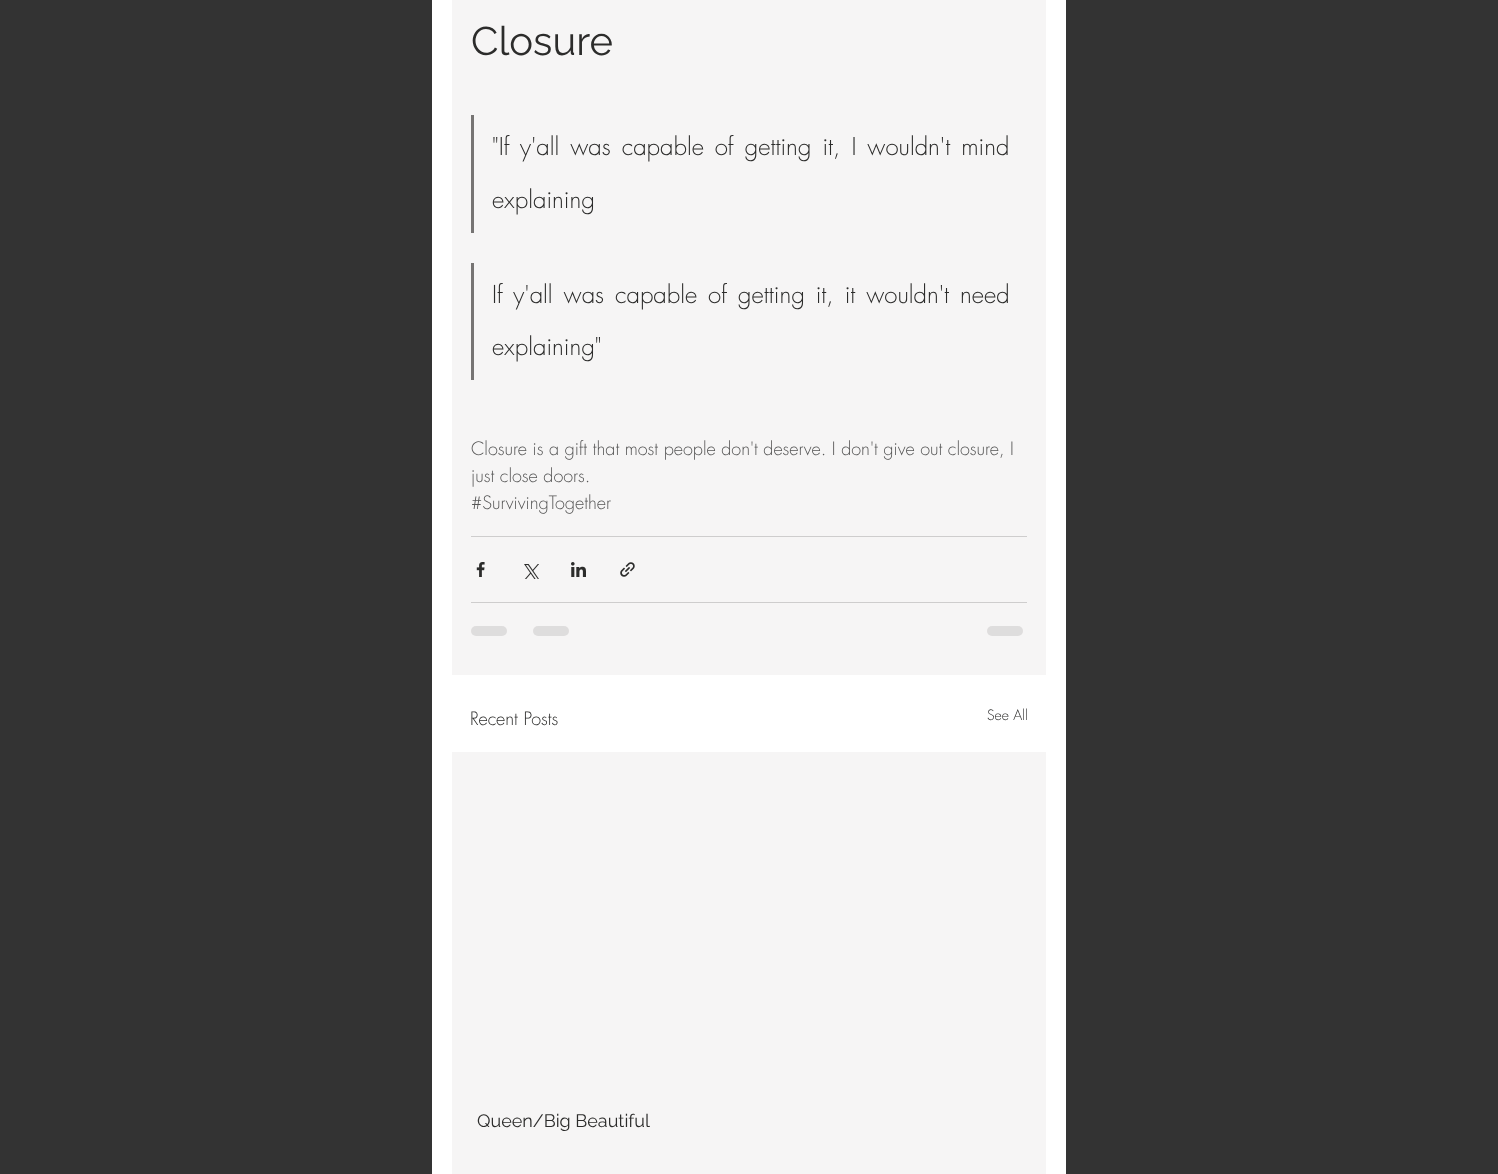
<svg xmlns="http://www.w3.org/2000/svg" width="1498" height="1174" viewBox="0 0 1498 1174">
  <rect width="100%" height="100%" fill="#333333"/>
  <rect x="432" y="0" width="634" height="1174" fill="#ffffff"/>
  <rect x="452" y="0" width="594" height="675" fill="#f6f5f5"/>
  <text x="471" y="55" font-family="Raleway" font-size="40" fill="#2c2c2b">Closure</text>
  <rect x="471" y="115" width="3" height="118" fill="#767473"/>
  <text x="492" y="155" word-spacing="3.5" font-family="futura" font-size="24" font-weight="300" fill="#2c2c2b">"If y'all was capable of getting it, I wouldn't mind</text>
  <text x="492" y="208" font-family="futura" font-size="24" font-weight="300" fill="#2c2c2b">explaining</text>
  <rect x="471" y="263" width="3" height="117" fill="#767473"/>
  <text x="492" y="303" word-spacing="3.5" font-family="futura" font-size="24" font-weight="300" fill="#2c2c2b">If y'all was capable of getting it, it wouldn't need</text>
  <text x="492" y="355" font-family="futura" font-size="24" font-weight="300" fill="#2c2c2b">explaining"</text>
  <text x="471" y="455" font-family="futura" font-size="18" font-weight="300" fill="#565656">Closure is a gift that most people don't deserve. I don't give out closure, I</text>
  <text x="471" y="482" font-family="futura" font-size="18" font-weight="300" fill="#565656">just close doors.</text>
  <text x="471" y="509" font-family="futura" font-size="18" font-weight="300" fill="#565656">#SurvivingTogether</text>
  <rect x="471" y="536" width="556" height="1" fill="#cecdcd"/>
  <image x="476" y="562" width="9" height="15" href="img1.png"/>
  <image x="524" y="564" width="15" height="15" href="img2.png"/>
  <image x="571" y="562" width="15" height="15" href="img3.png"/>
  <image x="620" y="562" width="15" height="15" href="img4.png"/>
  <rect x="471" y="602" width="556" height="1" fill="#cecdcd"/>
  <rect x="471" y="626" width="36" height="10" rx="5" fill="#dedddd"/>
  <rect x="533" y="626" width="36" height="10" rx="5" fill="#dedddd"/>
  <rect x="987" y="626" width="36" height="10" rx="5" fill="#dedddd"/>
  <text x="470" y="725" font-family="futura" font-size="18" font-weight="300" fill="#2c2c2b">Recent Posts</text>
  <text x="987" y="720" font-family="futura" font-size="14" font-weight="300" fill="#2c2c2b">See All</text>
  <rect x="452" y="752" width="594" height="422" fill="#f6f5f5"/>
  <text x="477" y="1127" font-family="Raleway" font-size="18" fill="#2c2c2b">Queen/Big Beautiful</text>
</svg>
